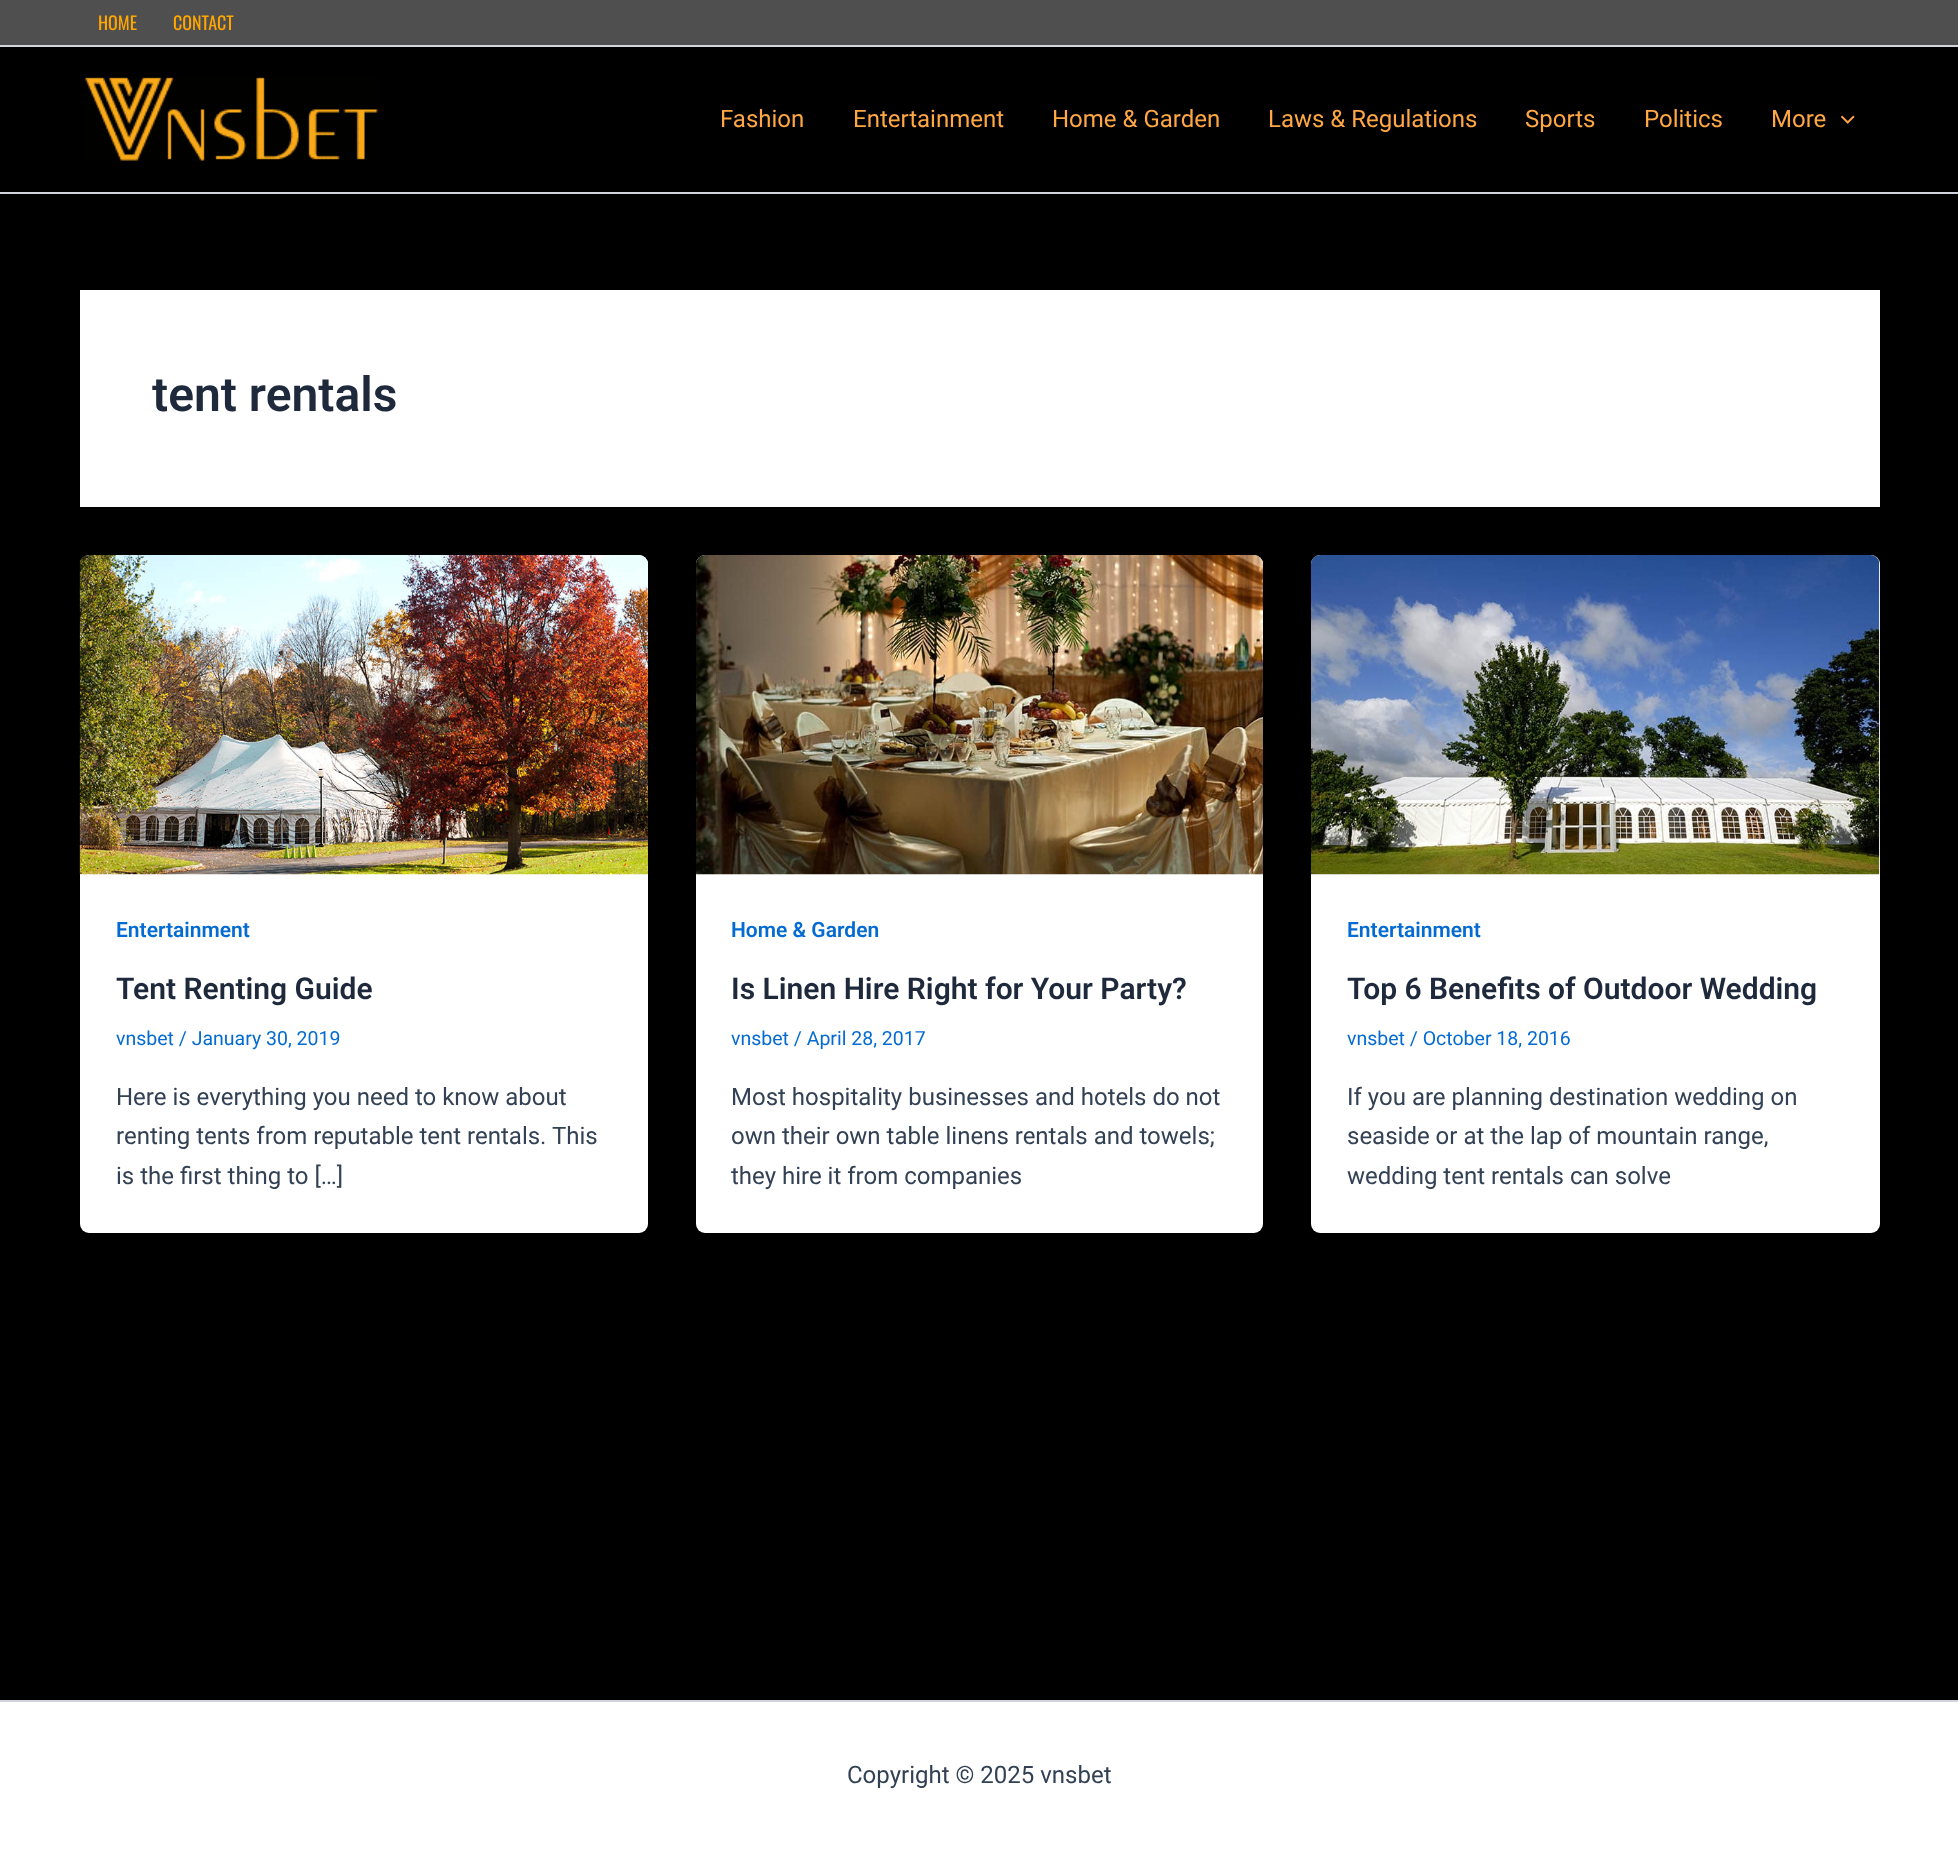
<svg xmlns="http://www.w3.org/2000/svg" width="1958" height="1850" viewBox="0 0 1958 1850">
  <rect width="100%" height="100%" fill="#000000"/>
  <rect x="0" y="0" width="1958" height="45" fill="#4f4f4f"/>
  <rect x="0" y="45" width="1958" height="2" fill="#d1d5db"/>
  <text x="98" y="30" font-family="Oswald" font-size="18" fill="#ffa600">HOME</text>
  <text x="173" y="30" font-family="Oswald" font-size="18" fill="#ffa600">CONTACT</text>
  <rect x="0" y="192" width="1958" height="2" fill="#d1d5db"/>
  <image x="85" y="77" width="294" height="84" href="img1.png"/>
  <text x="720" y="127" font-family="Roboto" font-size="24" fill="#ffa743">Fashion</text>
  <text x="853" y="127" font-family="Roboto" font-size="24" fill="#ffa743">Entertainment</text>
  <text x="1052" y="127" font-family="Roboto" font-size="24" fill="#ffa743">Home &amp; Garden</text>
  <text x="1268" y="127" font-family="Roboto" font-size="24" fill="#ffa743">Laws &amp; Regulations</text>
  <text x="1525" y="127" font-family="Roboto" font-size="24" fill="#ffa743">Sports</text>
  <text x="1644" y="127" font-family="Roboto" font-size="24" fill="#ffa743">Politics</text>
  <text x="1771" y="127" font-family="Roboto" font-size="24" fill="#ffa743">More</text>
  <image x="1841" y="115" width="14" height="9" href="img2.png"/>
  <rect x="80" y="290" width="1800" height="217" fill="#ffffff"/>
  <text x="152" y="411" font-family="Roboto" font-size="48" font-weight="600" fill="#1e293b">tent rentals</text>
  <rect x="80" y="555" width="568" height="678" rx="9" fill="#ffffff"/>
  <image x="79" y="555" width="569" height="320" href="img3.png"/>
  <text x="116" y="937" font-family="Roboto" font-size="21" font-weight="600" fill="#046bd2">Entertainment</text>
  <text x="116" y="999" font-family="Roboto" font-size="30" font-weight="600" fill="#1e293b">Tent Renting Guide</text>
  <text x="116" y="1045" font-family="Roboto" font-size="19.5" fill="#046bd2">vnsbet / January 30, 2019</text>
  <text x="116" y="1105" font-family="Roboto" font-size="24" fill="#334155">Here is everything you need to know about</text>
  <text x="116" y="1144" font-family="Roboto" font-size="24" fill="#334155">renting tents from reputable tent rentals. This</text>
  <text x="116" y="1184" font-family="Roboto" font-size="24" fill="#334155">is the first thing to […]</text>
  <rect x="696" y="555" width="567" height="678" rx="9" fill="#ffffff"/>
  <image x="696" y="555" width="567" height="320" href="img4.png"/>
  <text x="731" y="937" font-family="Roboto" font-size="21" font-weight="600" fill="#046bd2">Home &amp; Garden</text>
  <text x="731" y="999" font-family="Roboto" font-size="30" font-weight="600" fill="#1e293b">Is Linen Hire Right for Your Party?</text>
  <text x="731" y="1045" font-family="Roboto" font-size="19.5" fill="#046bd2">vnsbet / April 28, 2017</text>
  <text x="731" y="1105" font-family="Roboto" font-size="24" fill="#334155">Most hospitality businesses and hotels do not</text>
  <text x="731" y="1144" font-family="Roboto" font-size="24" fill="#334155">own their own table linens rentals and towels;</text>
  <text x="731" y="1184" font-family="Roboto" font-size="24" fill="#334155">they hire it from companies</text>
  <rect x="1311" y="555" width="569" height="678" rx="9" fill="#ffffff"/>
  <image x="1311" y="555" width="569" height="320" href="img5.png"/>
  <text x="1347" y="937" font-family="Roboto" font-size="21" font-weight="600" fill="#046bd2">Entertainment</text>
  <text x="1347" y="999" font-family="Roboto" font-size="30" font-weight="600" fill="#1e293b">Top 6 Benefits of Outdoor Wedding</text>
  <text x="1347" y="1045" font-family="Roboto" font-size="19.5" fill="#046bd2">vnsbet / October 18, 2016</text>
  <text x="1347" y="1105" font-family="Roboto" font-size="24" fill="#334155">If you are planning destination wedding on</text>
  <text x="1347" y="1144" font-family="Roboto" font-size="24" fill="#334155">seaside or at the lap of mountain range,</text>
  <text x="1347" y="1184" font-family="Roboto" font-size="24" fill="#334155">wedding tent rentals can solve</text>
  <rect x="0" y="1702" width="1958" height="148" fill="#ffffff"/>
  <rect x="0" y="1700" width="1958" height="2" fill="#d1d5db"/>
  <text x="847" y="1783" font-family="Roboto" font-size="24" fill="#334155">Copyright © 2025 vnsbet</text>
</svg>
